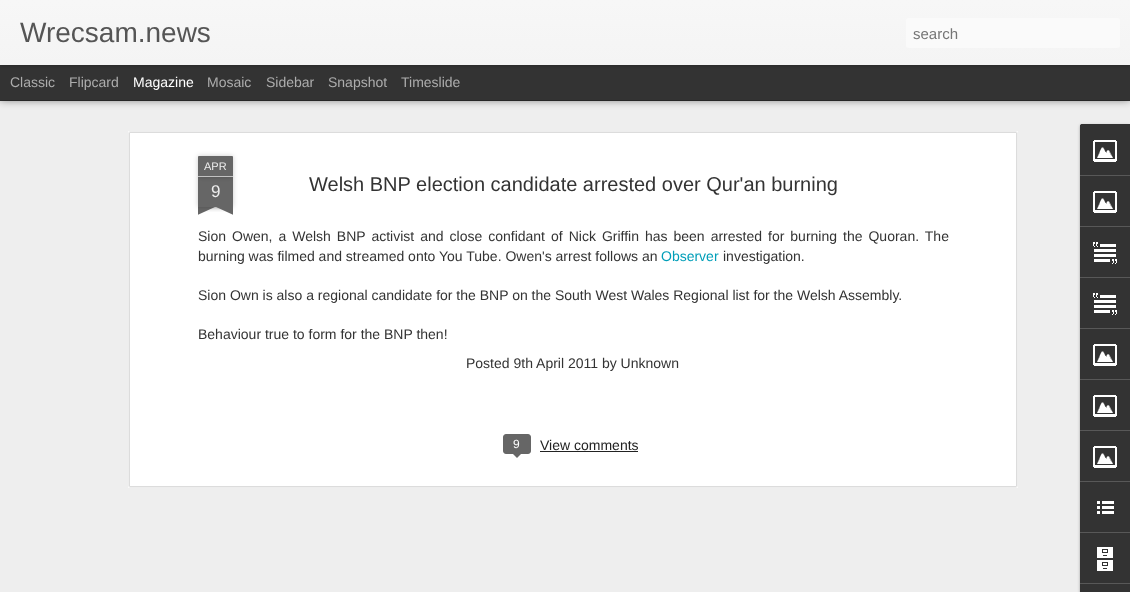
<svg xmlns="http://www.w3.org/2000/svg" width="1130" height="592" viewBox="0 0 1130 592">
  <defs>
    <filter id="blur1" x="-50%" y="-200%" width="200%" height="500%"><feGaussianBlur stdDeviation="4"/></filter>
    <filter id="blur2" x="-50%" y="-200%" width="200%" height="500%"><feGaussianBlur stdDeviation="2.5"/></filter>
    <linearGradient id="g1" gradientUnits="userSpaceOnUse" x1="0" y1="0" x2="0" y2="65"><stop offset="0" stop-color="#f7f7f7"/><stop offset="1" stop-color="#f4f4f4"/></linearGradient>
    <clipPath id="clip1"><rect x="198" y="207" width="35" height="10"/></clipPath>
    <clipPath id="clip2"><rect x="198" y="207" width="35" height="10"/></clipPath>
    <filter id="blur3" x="-50%" y="-200%" width="200%" height="500%"><feGaussianBlur stdDeviation="1.5"/></filter>
  </defs>
  <rect width="100%" height="100%" fill="#333333"/>
  <rect x="0" y="101" width="1130" height="491" fill="#eeeeee"/>
  <rect x="0" y="65" width="1130" height="35" fill="#000000" fill-opacity="0.5" filter="url(#blur1)"/>
  <rect x="0" y="65" width="1130" height="35" fill="#333333"/>
  <rect x="0" y="0" width="1130" height="65" fill="#000000" fill-opacity="0.3" filter="url(#blur2)"/>
  <rect x="0" y="0" width="1130" height="65" fill="url(#g1)"/>
  <text x="20" y="42" font-family="Liberation Sans" font-size="28" fill="#555555">Wrecsam.news</text>
  <rect x="906" y="18" width="214" height="30" rx="3" fill="#fafafa"/>
  <text x="913" y="39" font-family="Liberation Sans" font-size="15" fill="#757575">search</text>
  <text x="10" y="87" font-family="Liberation Sans" font-size="14" fill="#adadad">Classic</text>
  <text x="69" y="87" font-family="Liberation Sans" font-size="14" fill="#adadad">Flipcard</text>
  <text x="133" y="87" font-family="Liberation Sans" font-size="14" fill="#ffffff">Magazine</text>
  <text x="207" y="87" font-family="Liberation Sans" font-size="14" fill="#adadad">Mosaic</text>
  <text x="266" y="87" font-family="Liberation Sans" font-size="14" fill="#adadad">Sidebar</text>
  <text x="328" y="87" font-family="Liberation Sans" font-size="14" fill="#adadad">Snapshot</text>
  <text x="401" y="87" font-family="Liberation Sans" font-size="14" fill="#adadad">Timeslide</text>
  <rect x="128" y="131" width="890" height="357" fill="#ffffff"/>
  <image x="128" y="131" width="890" height="357" href="img1.png"/>
  <rect x="198" y="177" width="35" height="30" fill="#000000" fill-opacity="0.2" filter="url(#blur2)"/>
  <rect x="198" y="177" width="35" height="30" fill="#666666"/>
  <rect x="198" y="156" width="35" height="21" rx="1" fill="#000000" fill-opacity="0.2" filter="url(#blur2)"/>
  <path d="M199 156H232C232.5 156 233 156.5 233 157V177H198V157C198 156.5 198.5 156 199 156Z" fill="#666666"/>
  <rect x="198" y="176" width="35" height="1" fill="#c2c2c2"/>
  <text x="204" y="170" font-family="Liberation Sans" font-size="11" fill="#eeeeee">APR</text>
  <text x="211" y="197" font-family="Liberation Sans" font-size="17" fill="#eeeeee">9</text>
  <g clip-path="url(#clip1)">
    <rect x="189" y="197" width="50" height="10" fill="#000000" fill-opacity="0.2" filter="url(#blur2)"/>
  </g>
  <g clip-path="url(#clip2)">
    <path d="M189 208L235 187L239 196L193 217Z" fill="#666666"/>
  </g>
  <g clip-path="url(#clip1)">
    <rect x="192" y="197" width="50" height="10" fill="#000000" fill-opacity="0.2" filter="url(#blur2)"/>
  </g>
  <g clip-path="url(#clip2)">
    <path d="M196 187L242 208L238 217L192 196Z" fill="#666666"/>
  </g>
  <text x="309" y="191" font-family="Liberation Sans" font-size="20" fill="#333333">Welsh BNP election candidate arrested over Qur'an burning</text>
  <text x="198" y="241" word-spacing="2.1" font-family="Liberation Sans" font-size="14" fill="#333333">Sion Owen, a Welsh BNP activist and close confidant of Nick Griffin has been arrested for burning the Quoran. The</text>
  <text x="198" y="261" font-family="Liberation Sans" font-size="14" fill="#333333">burning was filmed and streamed onto You Tube. Owen's arrest follows an</text>
  <text x="661" y="261" font-family="Liberation Sans" font-size="14" fill="#009eb8">Observer</text>
  <text x="723" y="261" font-family="Liberation Sans" font-size="14" fill="#333333">investigation.</text>
  <text x="198" y="300" font-family="Liberation Sans" font-size="14" fill="#333333">Sion Own is also a regional candidate for the BNP on the South West Wales Regional list for the Welsh Assembly.</text>
  <text x="198" y="339" font-family="Liberation Sans" font-size="14" fill="#333333">Behaviour true to form for the BNP then!</text>
  <text x="466" y="368" font-family="Liberation Sans" font-size="14" fill="#333333">Posted 9th April 2011 by Unknown</text>
  <rect x="503.5" y="434.5" width="27" height="19" rx="2.5" fill="#666666" stroke="#666666"/>
  <text x="513" y="448" font-family="Liberation Sans" font-size="12" fill="#ffffff">9</text>
  <path d="M512 453H522L517 458Z" fill="#666666"/>
  <text x="540" y="450" font-family="Liberation Sans" font-size="14" fill="#222222">View comments</text>
  <rect x="540" y="451" width="98" height="1" fill="#222222"/>
  <rect x="1080" y="125" width="50" height="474" rx="2" fill="#000000" fill-opacity="0.3" filter="url(#blur3)"/>
  <path d="M1082 124H1130V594H1082C1081 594 1080 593 1080 592V126C1080 125 1081 124 1082 124Z" fill="#333333"/>
  <path d="M1082 124H1130V175H1080V126C1080 125 1081 124 1082 124Z" fill="#333333"/>
  <image x="1093" y="140" width="24" height="22" href="img2.png"/>
  <rect x="1080" y="175" width="50" height="1" fill="#585858"/>
  <image x="1093" y="191" width="24" height="22" href="img2.png"/>
  <rect x="1080" y="226" width="50" height="1" fill="#585858"/>
  <image x="1093" y="242" width="24" height="22" href="img3.png"/>
  <rect x="1080" y="277" width="50" height="1" fill="#585858"/>
  <image x="1093" y="293" width="24" height="22" href="img3.png"/>
  <rect x="1080" y="328" width="50" height="1" fill="#585858"/>
  <image x="1093" y="344" width="24" height="22" href="img2.png"/>
  <rect x="1080" y="379" width="50" height="1" fill="#585858"/>
  <image x="1093" y="395" width="24" height="22" href="img2.png"/>
  <rect x="1080" y="430" width="50" height="1" fill="#585858"/>
  <image x="1093" y="446" width="24" height="22" href="img2.png"/>
  <rect x="1080" y="481" width="50" height="1" fill="#585858"/>
  <image x="1097" y="501" width="17" height="13" href="img4.png"/>
  <rect x="1080" y="532" width="50" height="1" fill="#585858"/>
  <image x="1097" y="547" width="16" height="24" href="img5.png"/>
  <rect x="1080" y="583" width="50" height="1" fill="#585858"/>
</svg>
